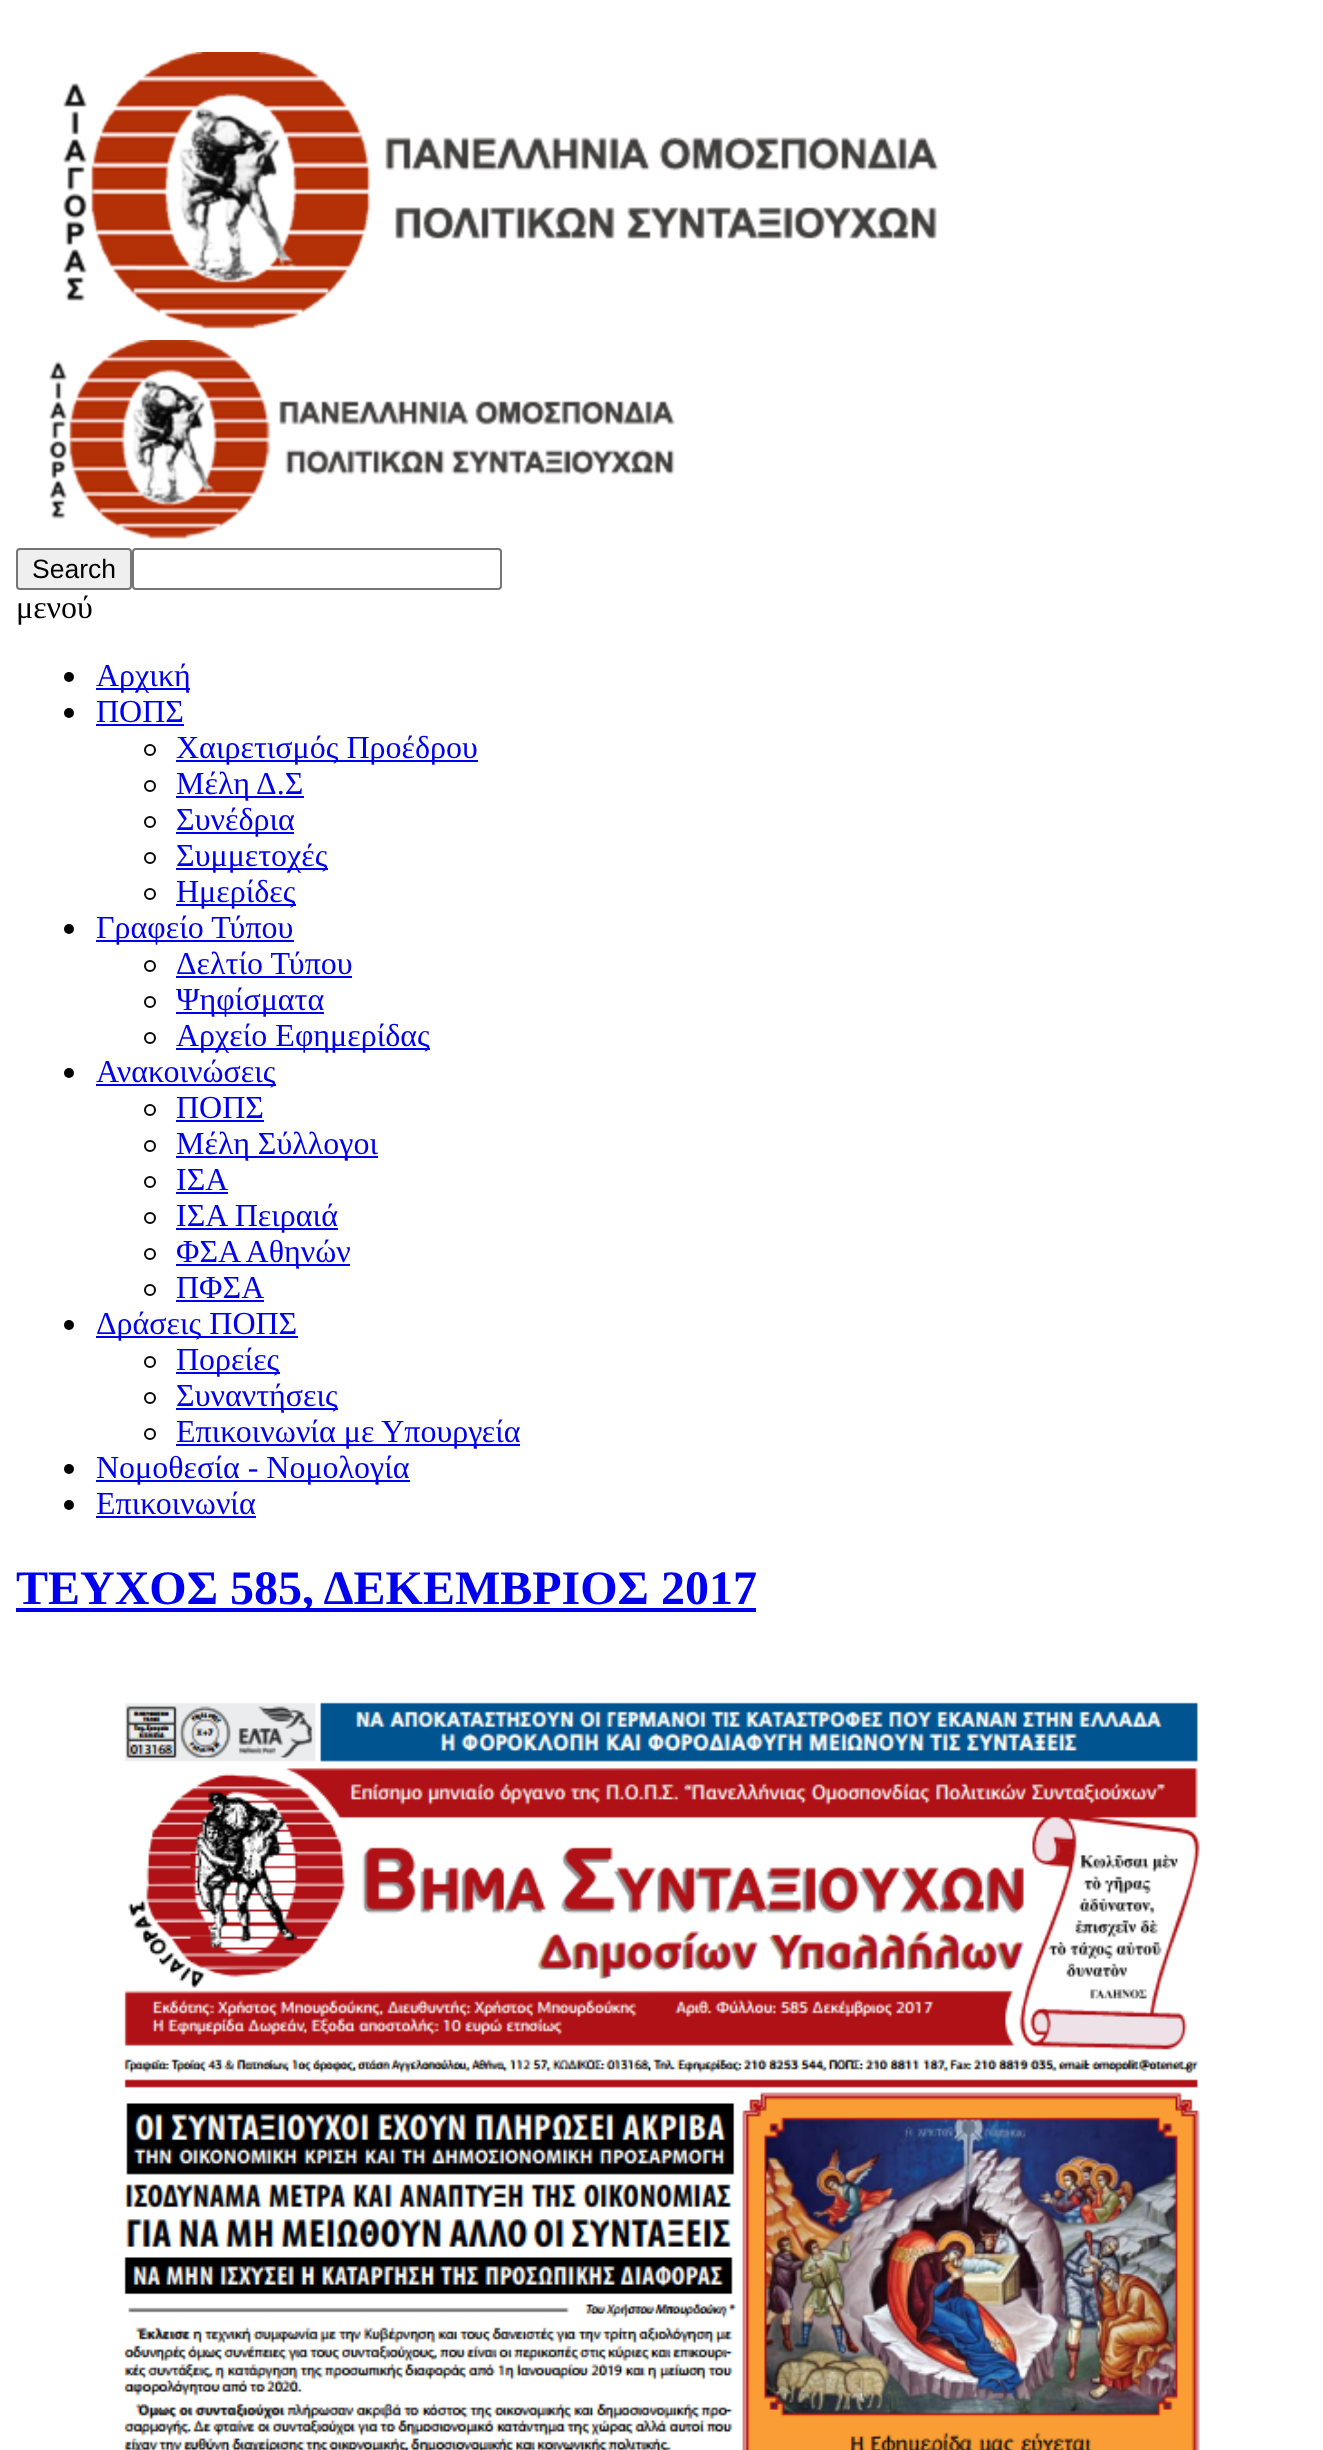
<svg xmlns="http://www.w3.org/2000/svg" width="1323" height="2450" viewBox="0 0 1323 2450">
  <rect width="100%" height="100%" fill="#ffffff"/>
  <image x="63" y="52" width="876" height="277" href="img1.png"/>
  <image x="49" y="340" width="626" height="199" href="img2.png"/>
  <rect x="17" y="549" width="114" height="40" rx="3" fill="#efefef" stroke="#767676" stroke-width="2"/>
  <text x="32" y="578" font-family="Liberation Sans" font-size="26.5" fill="#000000">Search</text>
  <rect x="133" y="549" width="368" height="40" rx="3" fill="none" stroke="#767676" stroke-width="2"/>
  <text x="16" y="618" font-family="Liberation Serif" font-size="32" fill="#000000">μενού</text>
  <circle cx="69" cy="677" r="5" fill="#000000"/>
  <rect x="96" y="688" width="94" height="2" fill="#0000ee"/>
  <text x="96" y="686" font-family="Liberation Serif" font-size="32" fill="#0000ee">Αρχική</text>
  <circle cx="69" cy="713" r="5" fill="#000000"/>
  <text x="96" y="722" font-family="Liberation Serif" font-size="32" fill="#0000ee">ΠΟΠΣ</text>
  <rect x="96" y="724" width="88" height="2" fill="#0000ee"/>
  <circle cx="150" cy="750" r="5" fill="none" stroke="#000000" stroke-width="2"/>
  <rect x="176" y="760" width="302" height="2" fill="#0000ee"/>
  <text x="176" y="758" font-family="Liberation Serif" font-size="32" fill="#0000ee">Χαιρετισμός Προέδρου</text>
  <circle cx="150" cy="786" r="5" fill="none" stroke="#000000" stroke-width="2"/>
  <rect x="176" y="796" width="128" height="2" fill="#0000ee"/>
  <text x="176" y="794" font-family="Liberation Serif" font-size="32" fill="#0000ee">Μέλη Δ.Σ</text>
  <circle cx="150" cy="822" r="5" fill="none" stroke="#000000" stroke-width="2"/>
  <rect x="176" y="832" width="118" height="2" fill="#0000ee"/>
  <text x="176" y="830" font-family="Liberation Serif" font-size="32" fill="#0000ee">Συνέδρια</text>
  <circle cx="150" cy="858" r="5" fill="none" stroke="#000000" stroke-width="2"/>
  <rect x="176" y="868" width="152" height="2" fill="#0000ee"/>
  <text x="176" y="866" font-family="Liberation Serif" font-size="32" fill="#0000ee">Συμμετοχές</text>
  <circle cx="150" cy="894" r="5" fill="none" stroke="#000000" stroke-width="2"/>
  <rect x="176" y="904" width="120" height="2" fill="#0000ee"/>
  <text x="176" y="902" font-family="Liberation Serif" font-size="32" fill="#0000ee">Ημερίδες</text>
  <circle cx="69" cy="929" r="5" fill="#000000"/>
  <rect x="96" y="940" width="198" height="2" fill="#0000ee"/>
  <text x="96" y="938" font-family="Liberation Serif" font-size="32" fill="#0000ee">Γραφείο Τύπου</text>
  <circle cx="150" cy="966" r="5" fill="none" stroke="#000000" stroke-width="2"/>
  <text x="176" y="974" font-family="Liberation Serif" font-size="32" fill="#0000ee">Δελτίο Τύπου</text>
  <rect x="176" y="976" width="176" height="2" fill="#0000ee"/>
  <circle cx="150" cy="1002" r="5" fill="none" stroke="#000000" stroke-width="2"/>
  <rect x="176" y="1012" width="148" height="2" fill="#0000ee"/>
  <text x="176" y="1010" font-family="Liberation Serif" font-size="32" fill="#0000ee">Ψηφίσματα</text>
  <circle cx="150" cy="1038" r="5" fill="none" stroke="#000000" stroke-width="2"/>
  <rect x="176" y="1048" width="254" height="2" fill="#0000ee"/>
  <text x="176" y="1046" font-family="Liberation Serif" font-size="32" fill="#0000ee">Αρχείο Εφημερίδας</text>
  <circle cx="69" cy="1073" r="5" fill="#000000"/>
  <rect x="96" y="1084" width="180" height="2" fill="#0000ee"/>
  <text x="96" y="1082" font-family="Liberation Serif" font-size="32" fill="#0000ee">Ανακοινώσεις</text>
  <circle cx="150" cy="1110" r="5" fill="none" stroke="#000000" stroke-width="2"/>
  <text x="176" y="1118" font-family="Liberation Serif" font-size="32" fill="#0000ee">ΠΟΠΣ</text>
  <rect x="176" y="1120" width="88" height="2" fill="#0000ee"/>
  <circle cx="150" cy="1146" r="5" fill="none" stroke="#000000" stroke-width="2"/>
  <rect x="176" y="1156" width="202" height="2" fill="#0000ee"/>
  <text x="176" y="1154" font-family="Liberation Serif" font-size="32" fill="#0000ee">Μέλη Σύλλογοι</text>
  <circle cx="150" cy="1182" r="5" fill="none" stroke="#000000" stroke-width="2"/>
  <text x="176" y="1190" font-family="Liberation Serif" font-size="32" fill="#0000ee">ΙΣΑ</text>
  <rect x="176" y="1192" width="52" height="2" fill="#0000ee"/>
  <circle cx="150" cy="1218" r="5" fill="none" stroke="#000000" stroke-width="2"/>
  <rect x="176" y="1228" width="162" height="2" fill="#0000ee"/>
  <text x="176" y="1226" font-family="Liberation Serif" font-size="32" fill="#0000ee">ΙΣΑ Πειραιά</text>
  <circle cx="150" cy="1254" r="5" fill="none" stroke="#000000" stroke-width="2"/>
  <rect x="176" y="1264" width="174" height="2" fill="#0000ee"/>
  <text x="176" y="1262" font-family="Liberation Serif" font-size="32" fill="#0000ee">ΦΣΑ Αθηνών</text>
  <circle cx="150" cy="1290" r="5" fill="none" stroke="#000000" stroke-width="2"/>
  <text x="176" y="1298" font-family="Liberation Serif" font-size="32" fill="#0000ee">ΠΦΣΑ</text>
  <rect x="176" y="1300" width="88" height="2" fill="#0000ee"/>
  <circle cx="69" cy="1325" r="5" fill="#000000"/>
  <rect x="96" y="1336" width="202" height="2" fill="#0000ee"/>
  <text x="96" y="1334" font-family="Liberation Serif" font-size="32" fill="#0000ee">Δράσεις ΠΟΠΣ</text>
  <circle cx="150" cy="1362" r="5" fill="none" stroke="#000000" stroke-width="2"/>
  <rect x="176" y="1372" width="104" height="2" fill="#0000ee"/>
  <text x="176" y="1370" font-family="Liberation Serif" font-size="32" fill="#0000ee">Πορείες</text>
  <circle cx="150" cy="1398" r="5" fill="none" stroke="#000000" stroke-width="2"/>
  <rect x="176" y="1408" width="162" height="2" fill="#0000ee"/>
  <text x="176" y="1406" font-family="Liberation Serif" font-size="32" fill="#0000ee">Συναντήσεις</text>
  <circle cx="150" cy="1434" r="5" fill="none" stroke="#000000" stroke-width="2"/>
  <rect x="176" y="1444" width="344" height="2" fill="#0000ee"/>
  <text x="176" y="1442" font-family="Liberation Serif" font-size="32" fill="#0000ee">Επικοινωνία με Υπουργεία</text>
  <circle cx="69" cy="1469" r="5" fill="#000000"/>
  <rect x="96" y="1480" width="314" height="2" fill="#0000ee"/>
  <text x="96" y="1478" font-family="Liberation Serif" font-size="32" fill="#0000ee">Νομοθεσία - Νομολογία</text>
  <circle cx="69" cy="1505" r="5" fill="#000000"/>
  <text x="96" y="1514" font-family="Liberation Serif" font-size="32" fill="#0000ee">Επικοινωνία</text>
  <rect x="96" y="1516" width="160" height="2" fill="#0000ee"/>
  <rect x="16" y="1608" width="740" height="4" fill="#0000ee"/>
  <text x="16" y="1604" font-family="Liberation Serif" font-size="48" font-weight="bold" fill="#0000ee">ΤΕΥΧΟΣ 585, ΔΕΚΕΜΒΡΙΟΣ 2017</text>
  <image x="123" y="1702" width="1077" height="748" href="img3.png"/>
</svg>
